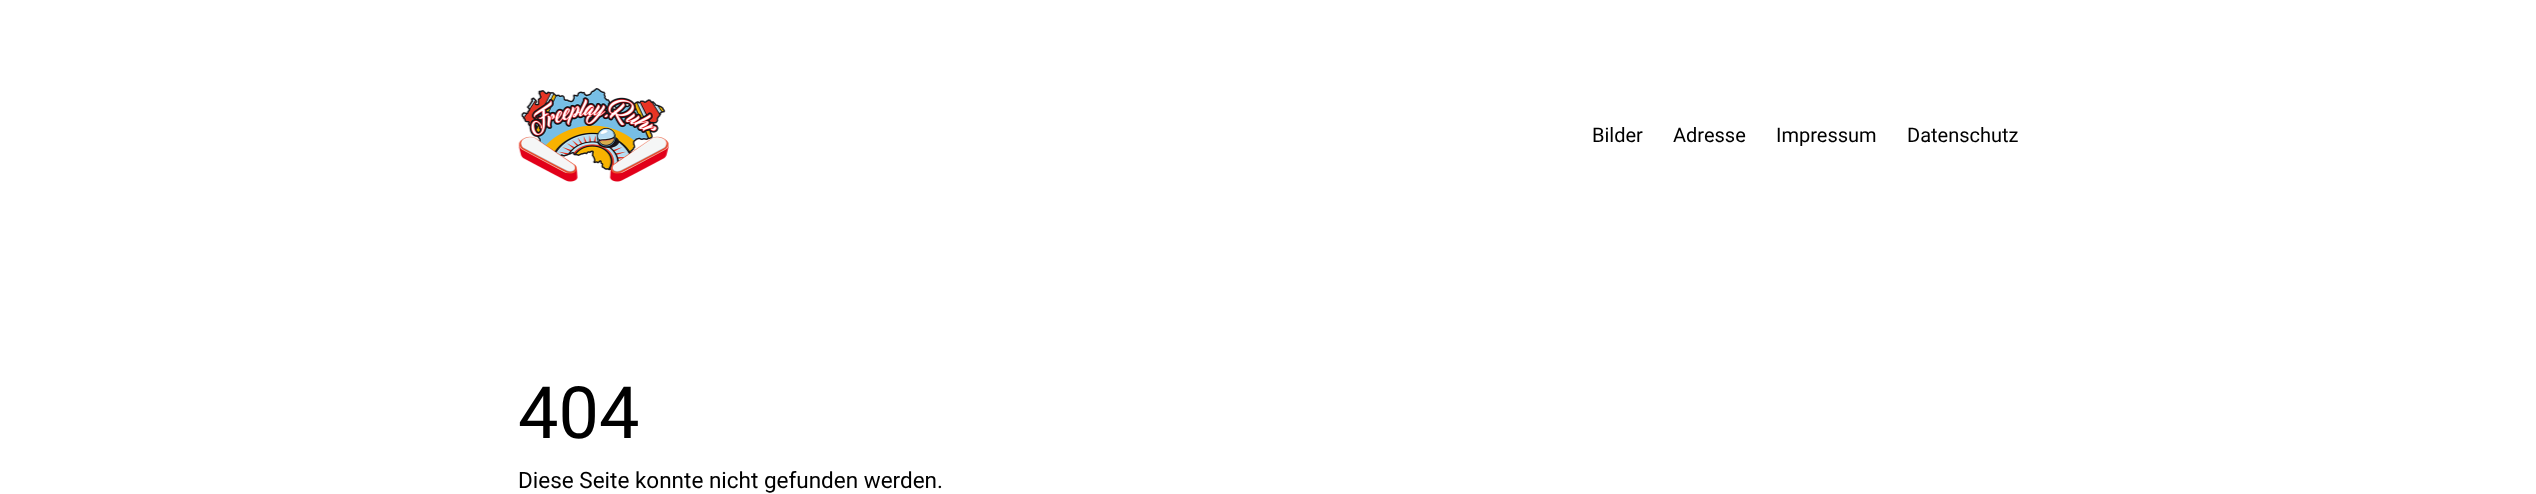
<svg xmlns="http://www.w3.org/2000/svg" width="2536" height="494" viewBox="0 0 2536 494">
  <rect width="100%" height="100%" fill="#ffffff"/>
  <image x="518" y="88" width="151" height="94" href="img1.png"/>
  <text x="1592" y="142" font-family="Roboto" font-size="20" fill="#000000">Bilder</text>
  <text x="1673" y="142" font-family="Roboto" font-size="20" fill="#000000">Adresse</text>
  <text x="1776" y="142" font-family="Roboto" font-size="20" fill="#000000">Impressum</text>
  <text x="1907" y="142" font-family="Roboto" font-size="20" fill="#000000">Datenschutz</text>
  <text x="518" y="438" font-family="Roboto" font-size="72" fill="#000000">404</text>
  <text x="518" y="488" font-family="Roboto" font-size="22.5" fill="#000000">Diese Seite konnte nicht gefunden werden.</text>
</svg>
